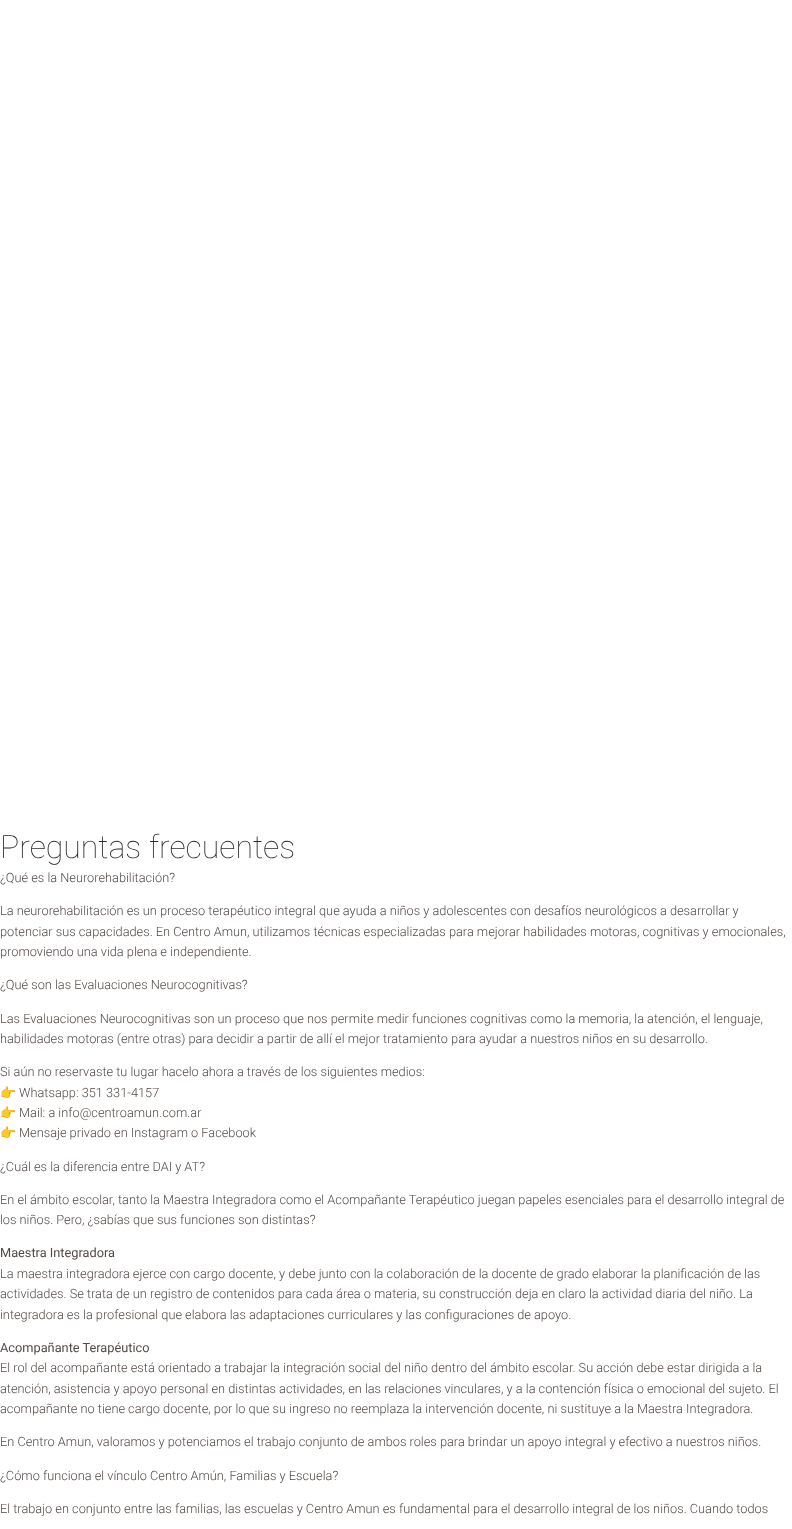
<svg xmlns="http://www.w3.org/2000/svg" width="792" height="1529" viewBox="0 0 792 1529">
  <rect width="100%" height="100%" fill="#ffffff"/>
  <text x="0" y="858" font-family="Roboto" font-size="32" font-weight="100" fill="#2c2927">Preguntas frecuentes</text>
  <text x="0" y="882" font-family="Roboto" font-size="12.77" font-weight="300" fill="#534a45">¿Qué es la Neurorehabilitación?</text>
  <text x="0" y="915" font-family="Roboto" font-size="12.77" font-weight="300" fill="#534a45">La neurorehabilitación es un proceso terapéutico integral que ayuda a niños y adolescentes con desafíos neurológicos a desarrollar y</text>
  <text x="0" y="936" font-family="Roboto" font-size="12.77" font-weight="300" fill="#534a45">potenciar sus capacidades. En Centro Amun, utilizamos técnicas especializadas para mejorar habilidades motoras, cognitivas y emocionales,</text>
  <text x="0" y="956" font-family="Roboto" font-size="12.77" font-weight="300" fill="#534a45">promoviendo una vida plena e independiente.</text>
  <text x="0" y="989" font-family="Roboto" font-size="12.77" font-weight="300" fill="#534a45">¿Qué son las Evaluaciones Neurocognitivas?</text>
  <text x="0" y="1023" font-family="Roboto" font-size="12.77" font-weight="300" fill="#534a45">Las Evaluaciones Neurocognitivas son un proceso que nos permite medir funciones cognitivas como la memoria, la atención, el lenguaje,</text>
  <text x="0" y="1043" font-family="Roboto" font-size="12.77" font-weight="300" fill="#534a45">habilidades motoras (entre otras) para decidir a partir de allí el mejor tratamiento para ayudar a nuestros niños en su desarrollo.</text>
  <text x="0" y="1076" font-family="Roboto" font-size="12.77" font-weight="300" fill="#534a45">Si aún no reservaste tu lugar hacelo ahora a través de los siguientes medios:</text>
  <text x="0" y="1097" font-family="Noto Color Emoji" font-size="12.77" fill="#534a45">👉</text>
  <text x="19" y="1097" font-family="Roboto" font-size="12.77" font-weight="300" fill="#534a45">Whatsapp: 351 331-4157</text>
  <text x="0" y="1117" font-family="Noto Color Emoji" font-size="12.77" fill="#534a45">👉</text>
  <text x="19" y="1117" font-family="Roboto" font-size="12.77" font-weight="300" fill="#534a45">Mail: a info@centroamun.com.ar</text>
  <text x="0" y="1137" font-family="Noto Color Emoji" font-size="12.77" fill="#534a45">👉</text>
  <text x="19" y="1137" font-family="Roboto" font-size="12.77" font-weight="300" fill="#534a45">Mensaje privado en Instagram o Facebook</text>
  <text x="0" y="1171" font-family="Roboto" font-size="12.77" font-weight="300" fill="#534a45">¿Cuál es la diferencia entre DAI y AT?</text>
  <text x="0" y="1204" font-family="Roboto" font-size="12.77" font-weight="300" fill="#534a45">En el ámbito escolar, tanto la Maestra Integradora como el Acompañante Terapéutico juegan papeles esenciales para el desarrollo integral de</text>
  <text x="0" y="1224" font-family="Roboto" font-size="12.77" font-weight="300" fill="#534a45">los niños. Pero, ¿sabías que sus funciones son distintas?</text>
  <text x="0" y="1257" font-family="Roboto" font-size="12.77" fill="#534a45">Maestra Integradora</text>
  <text x="0" y="1278" font-family="Roboto" font-size="12.77" font-weight="300" fill="#534a45">La maestra integradora ejerce con cargo docente, y debe junto con la colaboración de la docente de grado elaborar la planificación de las</text>
  <text x="0" y="1298" font-family="Roboto" font-size="12.77" font-weight="300" fill="#534a45">actividades. Se trata de un registro de contenidos para cada área o materia, su construcción deja en claro la actividad diaria del niño. La</text>
  <text x="0" y="1319" font-family="Roboto" font-size="12.77" font-weight="300" fill="#534a45">integradora es la profesional que elabora las adaptaciones curriculares y las configuraciones de apoyo.</text>
  <text x="0" y="1352" font-family="Roboto" font-size="12.77" fill="#534a45">Acompañante Terapéutico</text>
  <text x="0" y="1372" font-family="Roboto" font-size="12.77" font-weight="300" fill="#534a45">El rol del acompañante está orientado a trabajar la integración social del niño dentro del ámbito escolar. Su acción debe estar dirigida a la</text>
  <text x="0" y="1393" font-family="Roboto" font-size="12.77" font-weight="300" fill="#534a45">atención, asistencia y apoyo personal en distintas actividades, en las relaciones vinculares, y a la contención física o emocional del sujeto. El</text>
  <text x="0" y="1413" font-family="Roboto" font-size="12.77" font-weight="300" fill="#534a45">acompañante no tiene cargo docente, por lo que su ingreso no reemplaza la intervención docente, ni sustituye a la Maestra Integradora.</text>
  <text x="0" y="1446" font-family="Roboto" font-size="12.77" font-weight="300" fill="#534a45">En Centro Amun, valoramos y potenciamos el trabajo conjunto de ambos roles para brindar un apoyo integral y efectivo a nuestros niños.</text>
  <text x="0" y="1480" font-family="Roboto" font-size="12.77" font-weight="300" fill="#534a45">¿Cómo funciona el vínculo Centro Amún, Familias y Escuela?</text>
  <text x="0" y="1513" font-family="Roboto" font-size="12.77" font-weight="300" fill="#534a45">El trabajo en conjunto entre las familias, las escuelas y Centro Amun es fundamental para el desarrollo integral de los niños. Cuando todos</text>
</svg>
